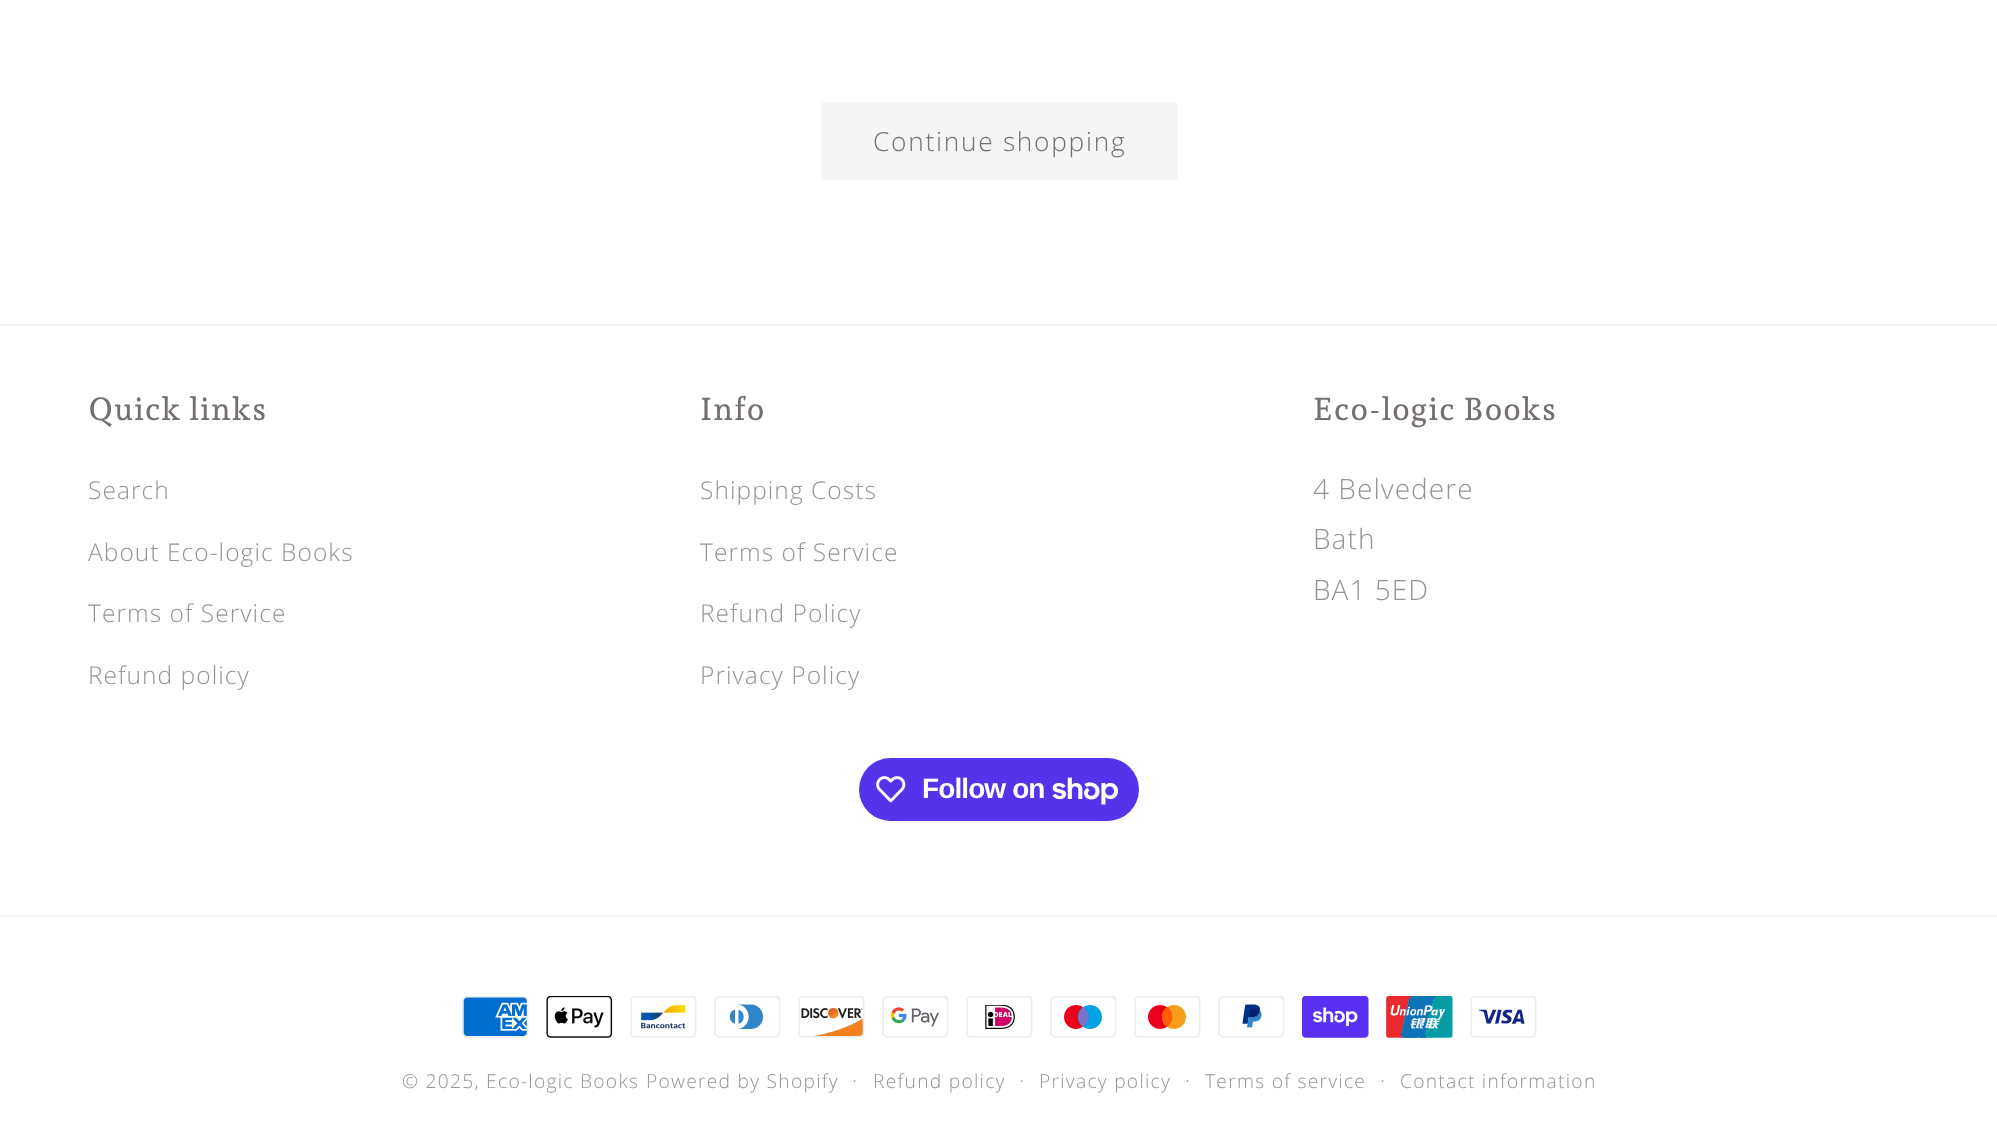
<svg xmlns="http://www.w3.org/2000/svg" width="1997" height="1134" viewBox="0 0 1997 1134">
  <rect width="100%" height="100%" fill="#ffffff"/>
  <rect x="821" y="102" width="357" height="78" rx="4" fill="#f5f5f5"/>
  <text x="873" y="151" font-family="Open Sans" font-size="26.25" font-weight="300" letter-spacing="1.75" fill="#766f6f">Continue shopping</text>
  <rect x="0" y="324" width="1997" height="2" fill="#f4f3f3"/>
  <text x="88" y="420" font-family="Andada Pro" font-size="31.5" font-weight="500" letter-spacing="1.05" fill="#766f6f">Quick links</text>
  <text x="88" y="499" font-family="Open Sans" font-size="24.5" font-weight="300" letter-spacing="1.05" fill="#989393">Search</text>
  <text x="88" y="561" font-family="Open Sans" font-size="24.5" font-weight="300" letter-spacing="1.05" fill="#989393">About Eco-logic Books</text>
  <text x="88" y="622" font-family="Open Sans" font-size="24.5" font-weight="300" letter-spacing="1.05" fill="#989393">Terms of Service</text>
  <text x="88" y="684" font-family="Open Sans" font-size="24.5" font-weight="300" letter-spacing="1.05" fill="#989393">Refund policy</text>
  <text x="700" y="420" font-family="Andada Pro" font-size="31.5" font-weight="500" letter-spacing="1.05" fill="#766f6f">Info</text>
  <text x="700" y="499" font-family="Open Sans" font-size="24.5" font-weight="300" letter-spacing="1.05" fill="#989393">Shipping Costs</text>
  <text x="700" y="561" font-family="Open Sans" font-size="24.5" font-weight="300" letter-spacing="1.05" fill="#989393">Terms of Service</text>
  <text x="700" y="622" font-family="Open Sans" font-size="24.5" font-weight="300" letter-spacing="1.05" fill="#989393">Refund Policy</text>
  <text x="700" y="684" font-family="Open Sans" font-size="24.5" font-weight="300" letter-spacing="1.05" fill="#989393">Privacy Policy</text>
  <text x="1313" y="420" font-family="Andada Pro" font-size="31.5" font-weight="500" letter-spacing="1.05" fill="#766f6f">Eco-logic Books</text>
  <text x="1313" y="499" font-family="Open Sans" font-size="28" font-weight="300" letter-spacing="1.05" fill="#989393">4 Belvedere</text>
  <text x="1313" y="549" font-family="Open Sans" font-size="28" font-weight="300" letter-spacing="1.05" fill="#989393">Bath</text>
  <text x="1313" y="600" font-family="Open Sans" font-size="28" font-weight="300" letter-spacing="1.05" fill="#989393">BA1 5ED</text>
  <rect x="859" y="758" width="280" height="63" rx="31.5" fill="#5433eb"/>
  <image x="876" y="776" width="30" height="27" href="img1.png"/>
  <text x="922" y="798" font-family="Liberation Sans" font-size="28" font-weight="bold" letter-spacing="-0.9" fill="#ffffff">Follow on</text>
  <image x="1052" y="777" width="66" height="28" href="img2.png"/>
  <rect x="0" y="915" width="1997" height="2" fill="#f4f3f3"/>
  <image x="462" y="996" width="67" height="42" href="img3.png"/>
  <image x="546" y="996" width="67" height="42" href="img4.png"/>
  <image x="630" y="996" width="67" height="42" href="img5.png"/>
  <image x="714" y="996" width="67" height="42" href="img6.png"/>
  <image x="798" y="996" width="67" height="42" href="img7.png"/>
  <image x="882" y="996" width="67" height="42" href="img8.png"/>
  <image x="966" y="996" width="67" height="42" href="img9.png"/>
  <image x="1050" y="996" width="67" height="42" href="img10.png"/>
  <image x="1134" y="996" width="67" height="42" href="img11.png"/>
  <image x="1218" y="996" width="67" height="42" href="img12.png"/>
  <image x="1302" y="996" width="67" height="42" href="img13.png"/>
  <image x="1386" y="996" width="67" height="42" href="img14.png"/>
  <image x="1470" y="996" width="67" height="42" href="img15.png"/>
  <text x="402" y="1088" font-family="Open Sans" font-size="19.25" font-weight="300" letter-spacing="1.25" fill="#989393">© 2025, Eco-logic Books</text>
  <text x="646" y="1088" font-family="Open Sans" font-size="19.25" font-weight="300" letter-spacing="1.25" fill="#989393">Powered by Shopify</text>
  <text x="852" y="1088" font-family="Open Sans" font-size="21" font-weight="300" letter-spacing="1.25" fill="#989393">·</text>
  <text x="873" y="1088" font-family="Open Sans" font-size="19.25" font-weight="300" letter-spacing="1.25" fill="#989393">Refund policy</text>
  <text x="1019" y="1088" font-family="Open Sans" font-size="21" font-weight="300" letter-spacing="1.25" fill="#989393">·</text>
  <text x="1039" y="1088" font-family="Open Sans" font-size="19.25" font-weight="300" letter-spacing="1.25" fill="#989393">Privacy policy</text>
  <text x="1185" y="1088" font-family="Open Sans" font-size="21" font-weight="300" letter-spacing="1.25" fill="#989393">·</text>
  <text x="1205" y="1088" font-family="Open Sans" font-size="19.25" font-weight="300" letter-spacing="1.25" fill="#989393">Terms of service</text>
  <text x="1380" y="1088" font-family="Open Sans" font-size="21" font-weight="300" letter-spacing="1.25" fill="#989393">·</text>
  <text x="1400" y="1088" font-family="Open Sans" font-size="19.25" font-weight="300" letter-spacing="1.25" fill="#989393">Contact information</text>
</svg>
